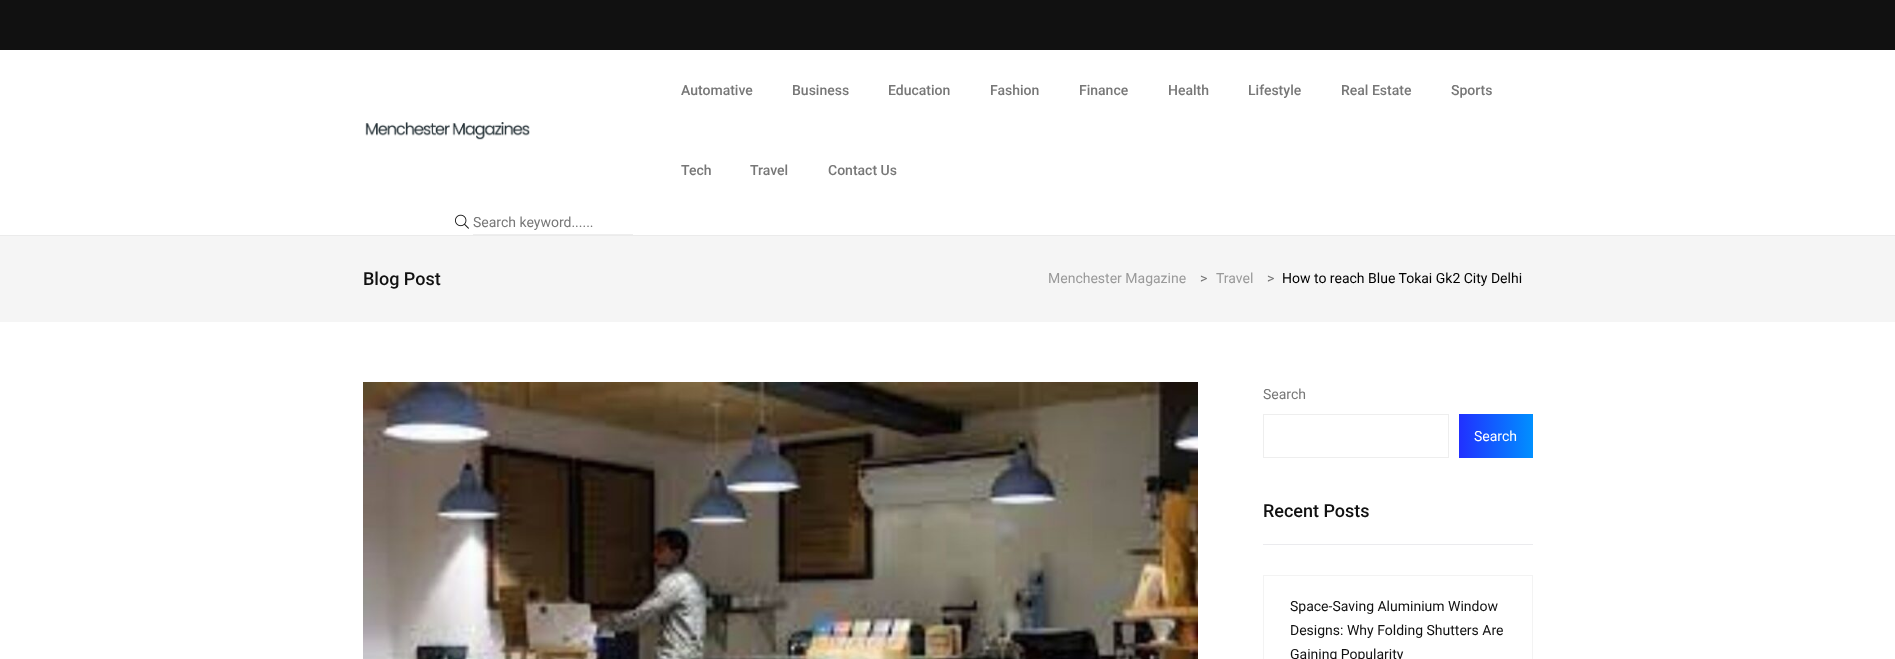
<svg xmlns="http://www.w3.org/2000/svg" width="1895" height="659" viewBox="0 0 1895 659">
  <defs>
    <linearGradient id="g1" gradientUnits="userSpaceOnUse" x1="1459" y1="436" x2="1533" y2="436"><stop offset="0" stop-color="#2130ff"/><stop offset="1" stop-color="#0090ff"/></linearGradient>
  </defs>
  <rect width="100%" height="100%" fill="#ffffff"/>
  <rect x="0" y="235" width="1895" height="1" fill="#ebebeb"/>
  <rect x="0" y="0" width="1895" height="50" fill="#111111"/>
  <image x="365" y="122" width="165" height="18" href="img1.png"/>
  <text x="681" y="95" font-family="Roboto" font-size="14" font-weight="500" fill="#777777">Automative</text>
  <text x="792" y="95" font-family="Roboto" font-size="14" font-weight="500" fill="#777777">Business</text>
  <text x="888" y="95" font-family="Roboto" font-size="14" font-weight="500" fill="#777777">Education</text>
  <text x="990" y="95" font-family="Roboto" font-size="14" font-weight="500" fill="#777777">Fashion</text>
  <text x="1079" y="95" font-family="Roboto" font-size="14" font-weight="500" fill="#777777">Finance</text>
  <text x="1168" y="95" font-family="Roboto" font-size="14" font-weight="500" fill="#777777">Health</text>
  <text x="1248" y="95" font-family="Roboto" font-size="14" font-weight="500" fill="#777777">Lifestyle</text>
  <text x="1341" y="95" font-family="Roboto" font-size="14" font-weight="500" fill="#777777">Real Estate</text>
  <text x="1451" y="95" font-family="Roboto" font-size="14" font-weight="500" fill="#777777">Sports</text>
  <text x="681" y="175" font-family="Roboto" font-size="14" font-weight="500" fill="#777777">Tech</text>
  <text x="750" y="175" font-family="Roboto" font-size="14" font-weight="500" fill="#777777">Travel</text>
  <text x="828" y="175" font-family="Roboto" font-size="14" font-weight="500" fill="#777777">Contact Us</text>
  <image x="455" y="214" width="14" height="15" href="img2.png"/>
  <rect x="473" y="234" width="160" height="1" fill="#eeeeee"/>
  <text x="473" y="227" font-family="Roboto" font-size="14" fill="#777777">Search keyword......</text>
  <rect x="0" y="236" width="1895" height="86" fill="#f5f5f5"/>
  <text x="363" y="285" font-family="Roboto" font-size="18" font-weight="500" fill="#111111">Blog Post</text>
  <text x="1048" y="283" font-family="Roboto" font-size="14" fill="#999999">Menchester Magazine</text>
  <text x="1200" y="283" font-family="Roboto" font-size="14" fill="#777777">&gt;</text>
  <text x="1216" y="283" font-family="Roboto" font-size="14" fill="#999999">Travel</text>
  <text x="1267" y="283" font-family="Roboto" font-size="14" fill="#777777">&gt;</text>
  <text x="1282" y="283" font-family="Roboto" font-size="14" fill="#000000">How to reach Blue Tokai Gk2 City Delhi</text>
  <image x="363" y="382" width="835" height="277" href="img3.png"/>
  <text x="1263" y="399" font-family="Roboto" font-size="14" fill="#777777">Search</text>
  <rect x="1263.5" y="414.5" width="185" height="43" fill="none" stroke="#eeeeee"/>
  <rect x="1459" y="414" width="74" height="44" fill="url(#g1)"/>
  <text x="1474" y="441" font-family="Roboto" font-size="14" fill="#ffffff">Search</text>
  <rect x="1263" y="544" width="270" height="1" fill="#ebebee"/>
  <text x="1263" y="517" font-family="Roboto" font-size="18" font-weight="500" fill="#111111">Recent Posts</text>
  <rect x="1263.5" y="575.5" width="269" height="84" fill="none" stroke="#f3f3f3"/>
  <text x="1290" y="611" font-family="Roboto" font-size="14" fill="#111111">Space-Saving Aluminium Window</text>
  <text x="1290" y="635" font-family="Roboto" font-size="14" fill="#111111">Designs: Why Folding Shutters Are</text>
  <text x="1290" y="659" font-family="Roboto" font-size="14" fill="#111111">Gaining Popularity</text>
</svg>
